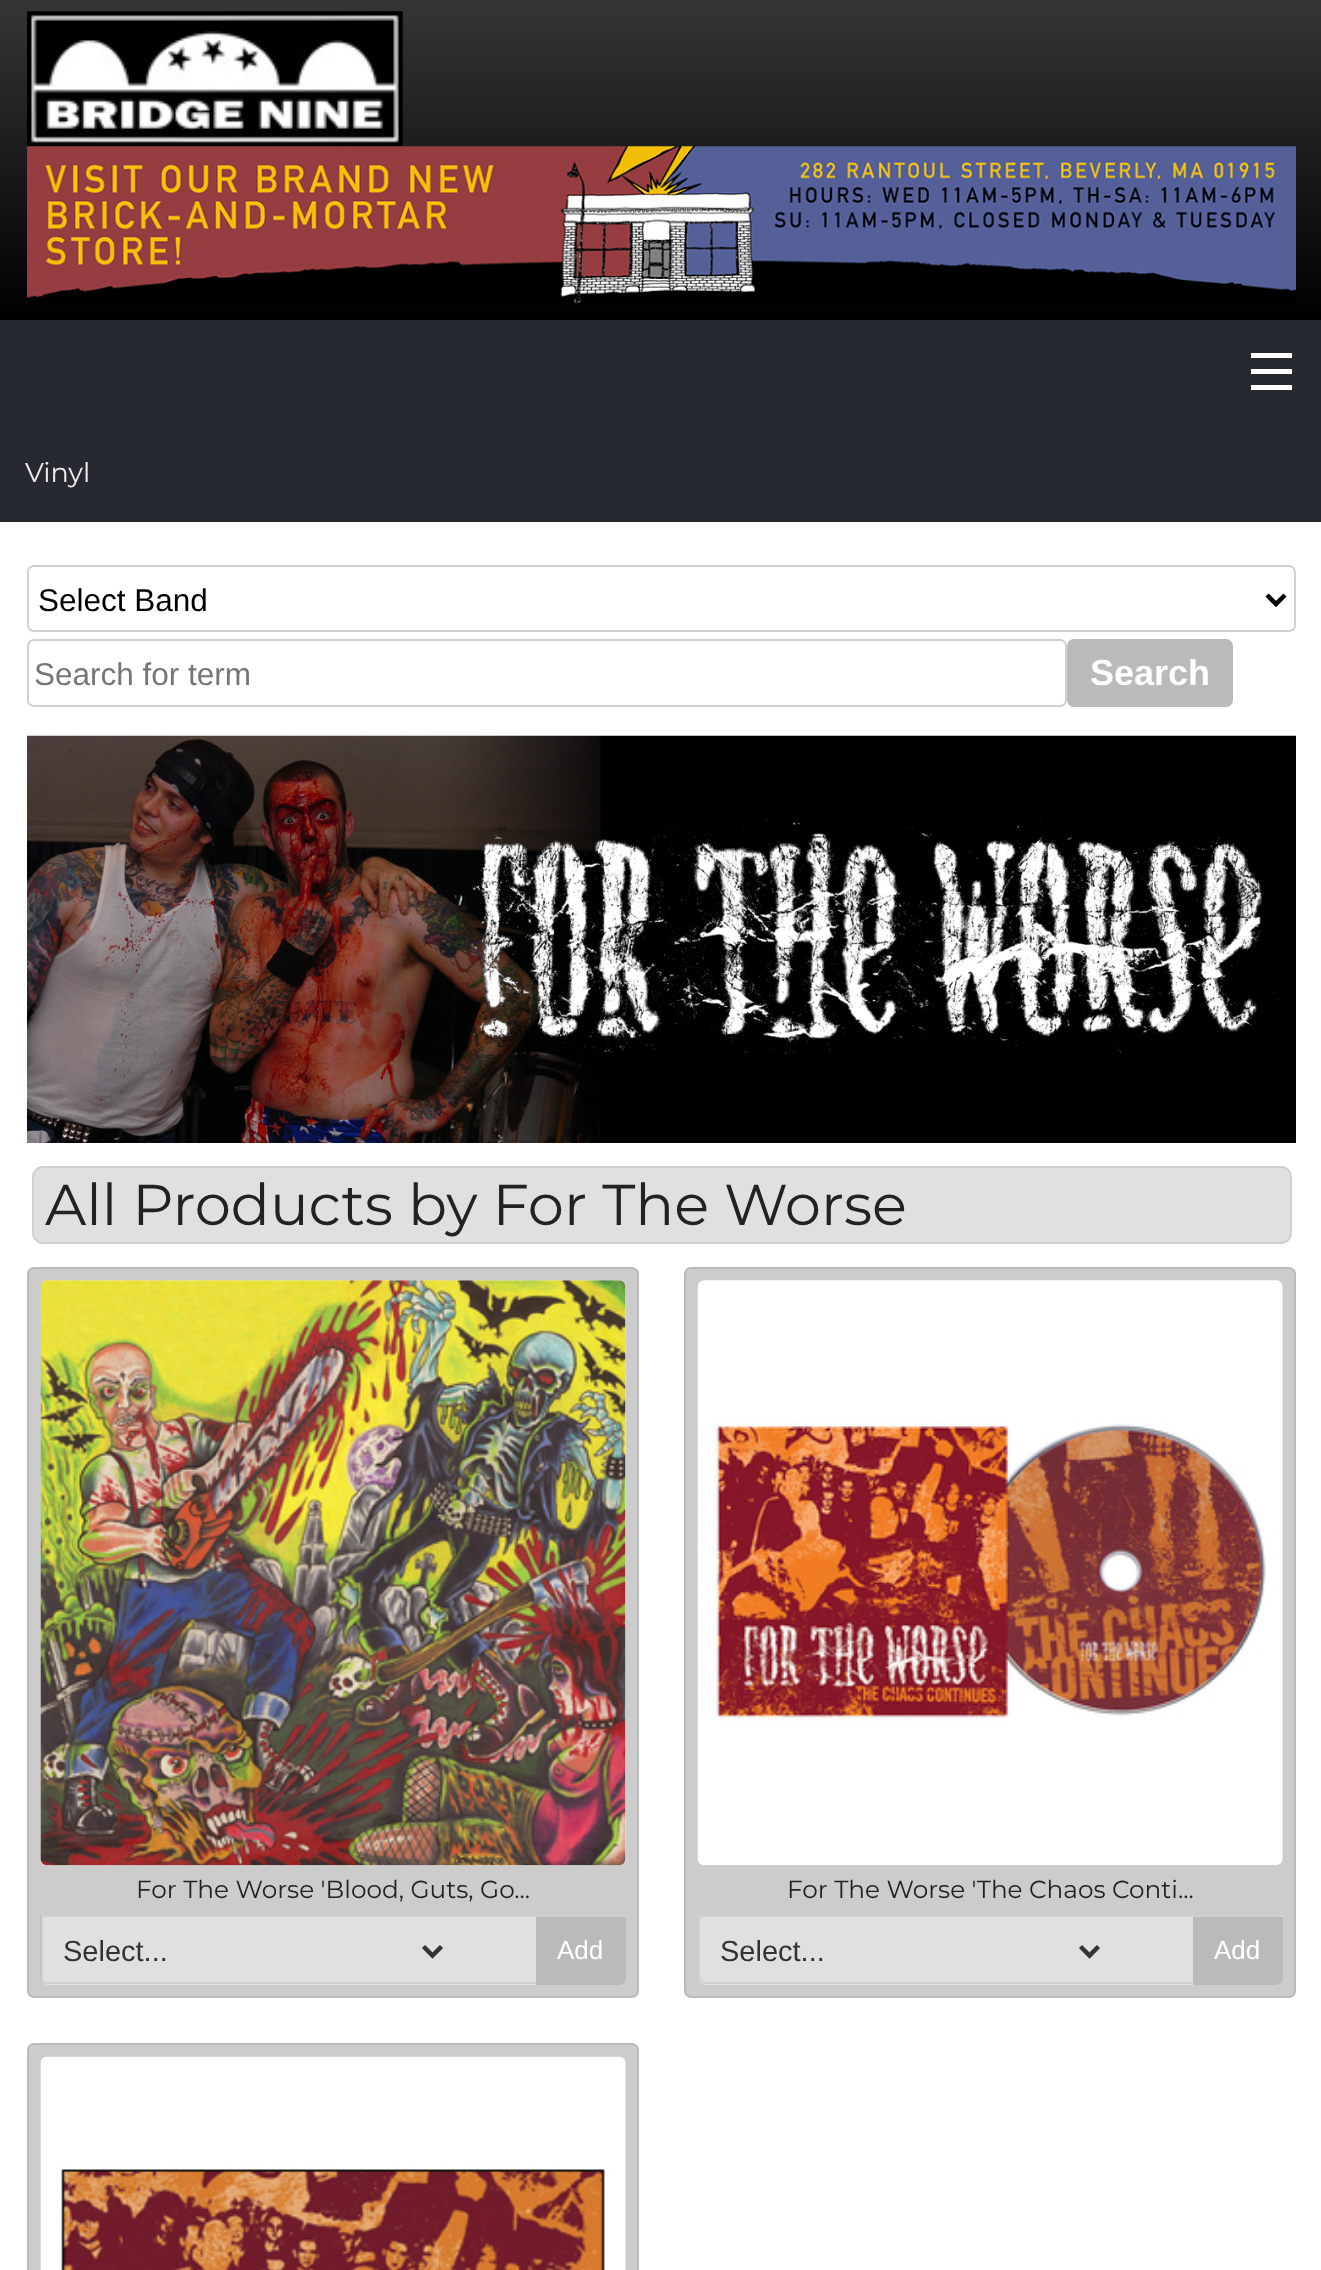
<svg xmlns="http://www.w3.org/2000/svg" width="1321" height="2270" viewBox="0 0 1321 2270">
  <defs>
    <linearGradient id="g1" gradientUnits="userSpaceOnUse" x1="0" y1="0" x2="0" y2="320"><stop offset="0" stop-color="#353535"/><stop offset="1" stop-color="#000000"/></linearGradient>
  </defs>
  <rect width="100%" height="100%" fill="#ffffff"/>
  <rect x="0" y="0" width="1321" height="320" fill="url(#g1)"/>
  <image x="27" y="11" width="376" height="136" href="img1.png"/>
  <image x="27" y="146" width="1269" height="158" href="img2.png"/>
  <rect x="0" y="320" width="1321" height="202" fill="#272930"/>
  <rect x="1251" y="385" width="41" height="5" fill="#ffffff"/>
  <rect x="1251" y="369" width="41" height="5" fill="#ffffff"/>
  <rect x="1251" y="353" width="41" height="5" fill="#ffffff"/>
  <text x="25" y="482" font-family="Montserrat" font-size="27" fill="#eeeeee">Vinyl</text>
  <rect x="28" y="566" width="1267" height="65" rx="6" fill="none" stroke="#d0d0d0" stroke-width="2"/>
  <path d="M1267 595L1276 604L1285 595" fill="none" stroke="#000000" stroke-width="4.5"/>
  <text x="38" y="611" font-family="Liberation Sans" font-size="31.5" fill="#000000">Select Band</text>
  <rect x="28" y="640" width="1038" height="66" rx="6" fill="none" stroke="#d0d0d0" stroke-width="2"/>
  <text x="34" y="685" font-family="Liberation Sans" font-size="31.5" fill="#757575">Search for term</text>
  <rect x="1067" y="639" width="166" height="68" rx="7" fill="#bababa"/>
  <text x="1090" y="685" font-family="Liberation Sans" font-size="36" font-weight="bold" fill="#ffffff">Search</text>
  <image x="27" y="735" width="1269" height="408" href="img3.png"/>
  <rect x="33" y="1167" width="1258" height="76" rx="10" fill="#e0e0e0" stroke="#d0d0d0" stroke-width="2"/>
  <text x="45" y="1225" font-family="Montserrat" font-size="57.6" fill="#222222">All Products by For The Worse</text>
  <rect x="28" y="1268" width="610" height="729" rx="6" fill="#cccccc" stroke="#bbbbbb" stroke-width="2"/>
  <rect x="41" y="1280" width="585" height="585" rx="7" fill="#e0e0e0"/>
  <image x="40" y="1280" width="586" height="586" href="img4.png"/>
  <text x="136" y="1898" font-family="Montserrat" font-size="24.75" fill="#222222">For The Worse 'Blood, Guts, Go...</text>
  <path d="M41 1915H626V1978C626 1982 623 1985 619 1985H48C44 1985 41 1982 41 1978Z" fill="#e0e0e0"/>
  <path d="M40 1915H626V1978C626 1981 622 1984 619 1984H47C44 1984 40 1981 40 1978ZM43 1917H626V1978C626 1980 622 1982 619 1982H47C45 1982 43 1980 43 1978Z" fill="#000000" fill-opacity="0.07" fill-rule="evenodd"/>
  <path d="M423.5 1946.5L432.5 1955.5L441.5 1946.5" fill="none" stroke="#333333" stroke-width="4.5"/>
  <text x="63" y="1961" font-family="Liberation Sans" font-size="29" fill="#333333">Select...</text>
  <path d="M536 1917H626V1978C626 1982 623 1985 619 1985H536Z" fill="#bababa"/>
  <text x="557" y="1959" font-family="Liberation Sans" font-size="26" fill="#ffffff">Add</text>
  <rect x="685" y="1268" width="610" height="729" rx="6" fill="#cccccc" stroke="#bbbbbb" stroke-width="2"/>
  <rect x="698" y="1280" width="585" height="585" rx="7" fill="#e0e0e0"/>
  <image x="697" y="1280" width="586" height="585" href="img5.png"/>
  <text x="787" y="1898" font-family="Montserrat" font-size="24.75" fill="#222222">For The Worse 'The Chaos Conti...</text>
  <path d="M698 1915H1283V1978C1283 1982 1280 1985 1276 1985H705C701 1985 698 1982 698 1978Z" fill="#e0e0e0"/>
  <path d="M698 1915H1282V1978C1282 1981 1279 1984 1276 1984H704C701 1984 698 1981 698 1978ZM700 1917H1282V1978C1282 1980 1279 1982 1276 1982H704C702 1982 700 1980 700 1978Z" fill="#000000" fill-opacity="0.07" fill-rule="evenodd"/>
  <path d="M1080.5 1946.5L1089.5 1955.5L1098.5 1946.5" fill="none" stroke="#333333" stroke-width="4.5"/>
  <text x="720" y="1961" font-family="Liberation Sans" font-size="29" fill="#333333">Select...</text>
  <path d="M1193 1917H1283V1978C1283 1982 1280 1985 1276 1985H1193Z" fill="#bababa"/>
  <text x="1214" y="1959" font-family="Liberation Sans" font-size="26" fill="#ffffff">Add</text>
  <rect x="28" y="2044" width="610" height="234" rx="6" fill="#cccccc" stroke="#bbbbbb" stroke-width="2"/>
  <rect x="41" y="2057" width="585" height="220" rx="7" fill="#e0e0e0"/>
  <image x="40" y="2056" width="586" height="214" href="img6.png"/>
</svg>
